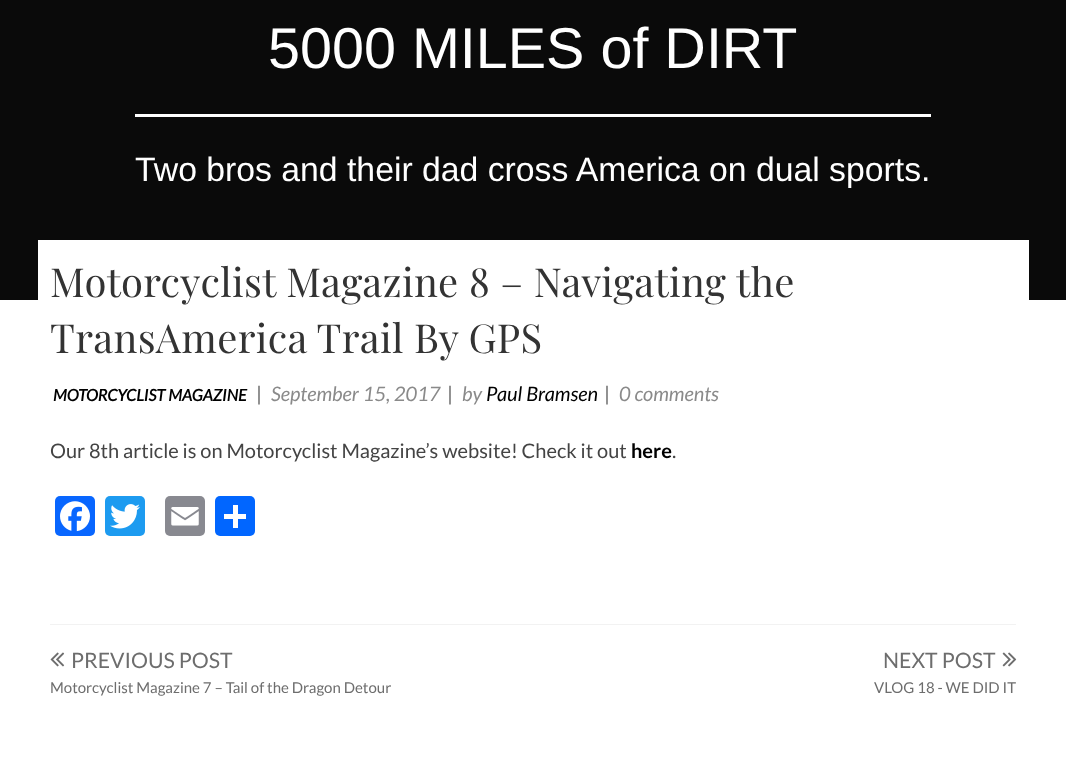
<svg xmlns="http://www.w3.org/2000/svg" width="1066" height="763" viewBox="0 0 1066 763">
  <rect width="100%" height="100%" fill="#ffffff"/>
  <rect x="0" y="0" width="1066" height="300" fill="#0a0a0a"/>
  <text x="268" y="68" font-family="Liberation Sans" font-size="57.5" fill="#ffffff">5000 MILES of DIRT</text>
  <rect x="135" y="114" width="796" height="3" fill="#ffffff"/>
  <text x="135" y="181" font-family="Liberation Sans" font-size="33.75" fill="#ffffff">Two bros and their dad cross America on dual sports.</text>
  <rect x="38" y="240" width="991" height="60" fill="#ffffff"/>
  <text x="50" y="297" font-family="Playfair Display" font-size="40" letter-spacing="0.3" fill="#333333">Motorcyclist Magazine 8 – Navigating the</text>
  <text x="50" y="353" font-family="Playfair Display" font-size="40" letter-spacing="0.3" fill="#333333">TransAmerica Trail By GPS</text>
  <text x="53" y="401" font-family="Lato" font-size="16.25" font-weight="bold" font-style="italic" fill="#000000">MOTORCYCLIST MAGAZINE</text>
  <text x="256" y="401" font-family="Lato" font-size="20" fill="#666666">|</text>
  <text x="271" y="401" font-family="Lato" font-size="20" font-style="italic" fill="#8a8a8a">September 15, 2017</text>
  <text x="447" y="401" font-family="Lato" font-size="20" fill="#666666">|</text>
  <text x="462" y="401" font-family="Lato" font-size="20" font-style="italic" fill="#8a8a8a">by</text>
  <text x="486" y="401" font-family="Lato" font-size="20" font-style="italic" fill="#000000">Paul Bramsen</text>
  <text x="604" y="401" font-family="Lato" font-size="20" fill="#666666">|</text>
  <text x="619" y="401" font-family="Lato" font-size="20" font-style="italic" fill="#8a8a8a">0 comments</text>
  <text x="50" y="458" font-family="Lato" font-size="20" fill="#444444">Our 8th article is on Motorcyclist Magazine’s website! Check it out</text>
  <text x="631" y="458" font-family="Lato" font-size="20" font-weight="bold" fill="#000000">here</text>
  <text x="672" y="458" font-family="Lato" font-size="20" fill="#444444">.</text>
  <rect x="55" y="496" width="40" height="40" rx="5" fill="#0866ff"/>
  <image x="60" y="501" width="30" height="31" href="img1.png"/>
  <rect x="105" y="496" width="40" height="40" rx="5" fill="#1d9bf0"/>
  <image x="110" y="504" width="30" height="25" href="img2.png"/>
  <rect x="165" y="496" width="40" height="40" rx="5" fill="#888990"/>
  <image x="171" y="507" width="28" height="19" href="img3.png"/>
  <rect x="215" y="496" width="40" height="40" rx="5" fill="#0166ff"/>
  <rect x="233" y="505" width="5" height="23" fill="#ffffff"/>
  <rect x="224" y="514" width="22" height="5" fill="#ffffff"/>
  <rect x="50" y="624" width="966" height="1" fill="#f2f2f2"/>
  <image x="50" y="652" width="15" height="15" href="img4.png"/>
  <text x="71" y="668" font-family="Lato" font-size="21.25" fill="#6d6d6d">PREVIOUS POST</text>
  <text x="50" y="693" font-family="Lato" font-size="15" fill="#6d6d6d">Motorcyclist Magazine 7 – Tail of the Dragon Detour</text>
  <text x="883" y="668" font-family="Lato" font-size="21.25" fill="#6d6d6d">NEXT POST</text>
  <image x="1002" y="652" width="15" height="15" href="img5.png"/>
  <text x="874" y="693" font-family="Lato" font-size="15" fill="#6d6d6d">VLOG 18 - WE DID IT</text>
</svg>
